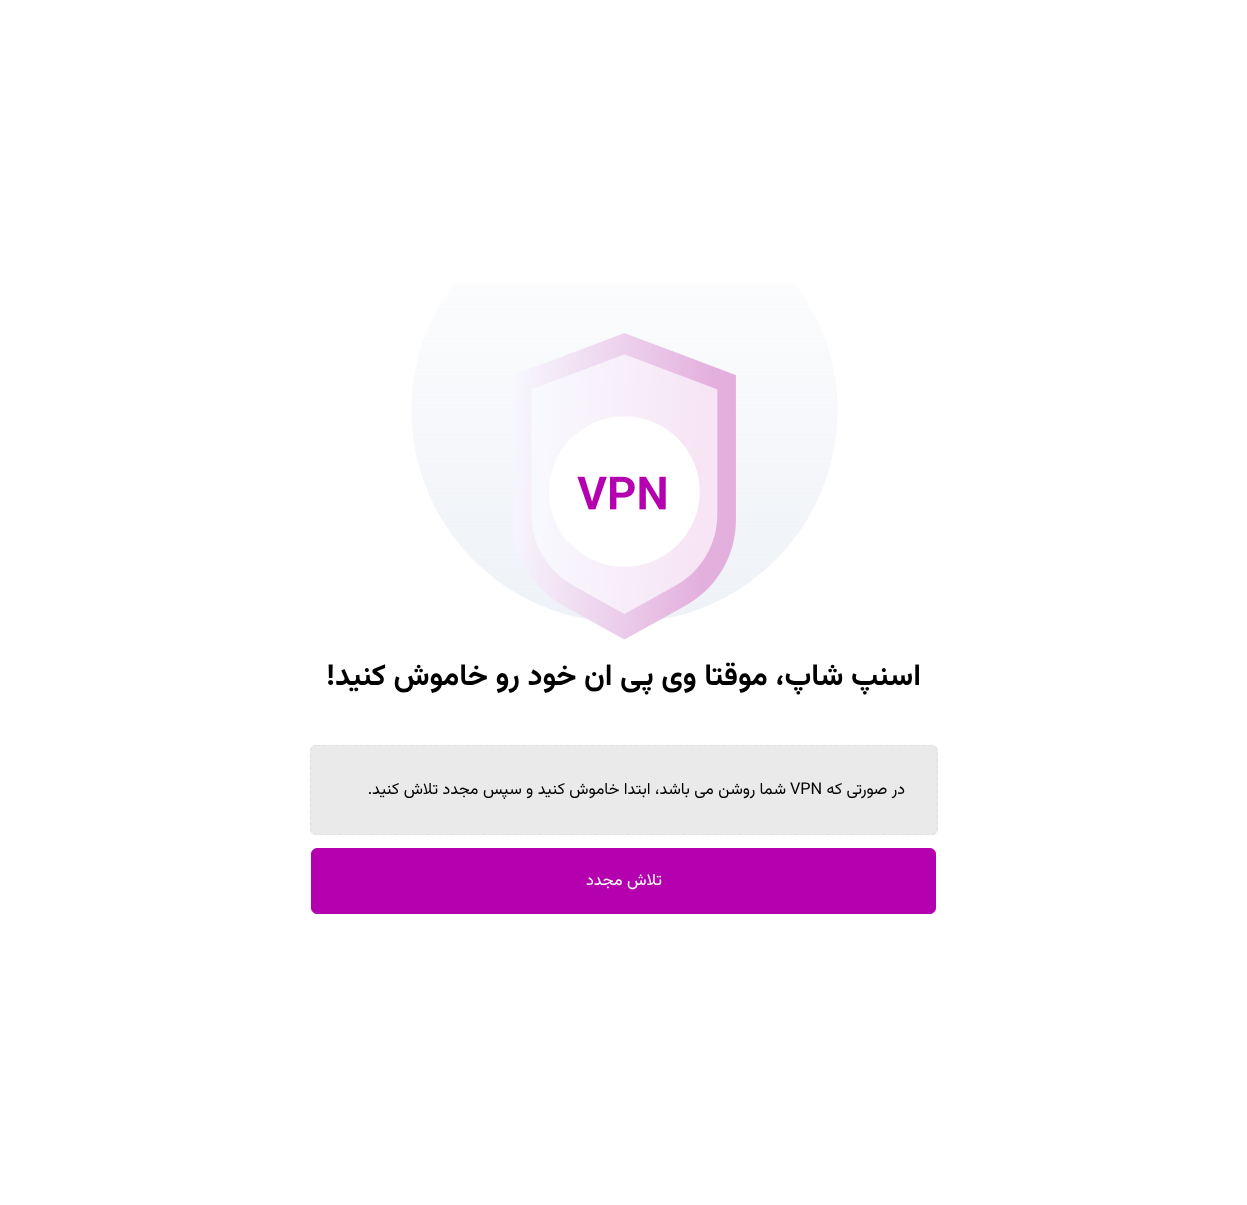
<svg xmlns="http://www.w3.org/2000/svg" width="1247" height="1205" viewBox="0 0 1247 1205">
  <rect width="100%" height="100%" fill="#ffffff"/>
  <image x="411" y="283" width="427" height="357" href="img1.png"/>
  <text x="921" y="685" font-family="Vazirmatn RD" font-size="30" font-weight="bold" direction="rtl" fill="#000000">اسنپ شاپ، موقتا وی پی ان خود رو خاموش کنید!</text>
  <rect x="310" y="745" width="628" height="90" rx="6" fill="#eaeaea"/>
  <path d="M316 745.5H931C934.5 745.5 937 748 937 751V829C937 832 934.5 834.5 931 834.5H316C313 834.5 310.5 832 310.5 829V751C310.5 748 313 745.5 316 745.5Z" fill="none" stroke="#e1e1e1" stroke-width="1.2" stroke-dasharray="3.75 2.5"/>
  <text x="905" y="794" font-family="Vazirmatn RD" font-size="16.25" direction="rtl" fill="#000000">در صورتی که</text>
  <text x="790" y="794" font-family="Vazirmatn RD" font-size="16.25" fill="#000000">VPN</text>
  <text x="786" y="794" font-family="Vazirmatn RD" font-size="16.25" direction="rtl" fill="#000000">شما روشن می باشد، ابتدا خاموش کنید و سپس مجدد تلاش کنید.</text>
  <rect x="311.5" y="848.5" width="624" height="65" rx="5.5" fill="#b400ae" stroke="#b400ae"/>
  <text x="662" y="885" font-family="Vazirmatn RD" font-size="16.5" direction="rtl" fill="#ffffff">تلاش مجدد</text>
</svg>
